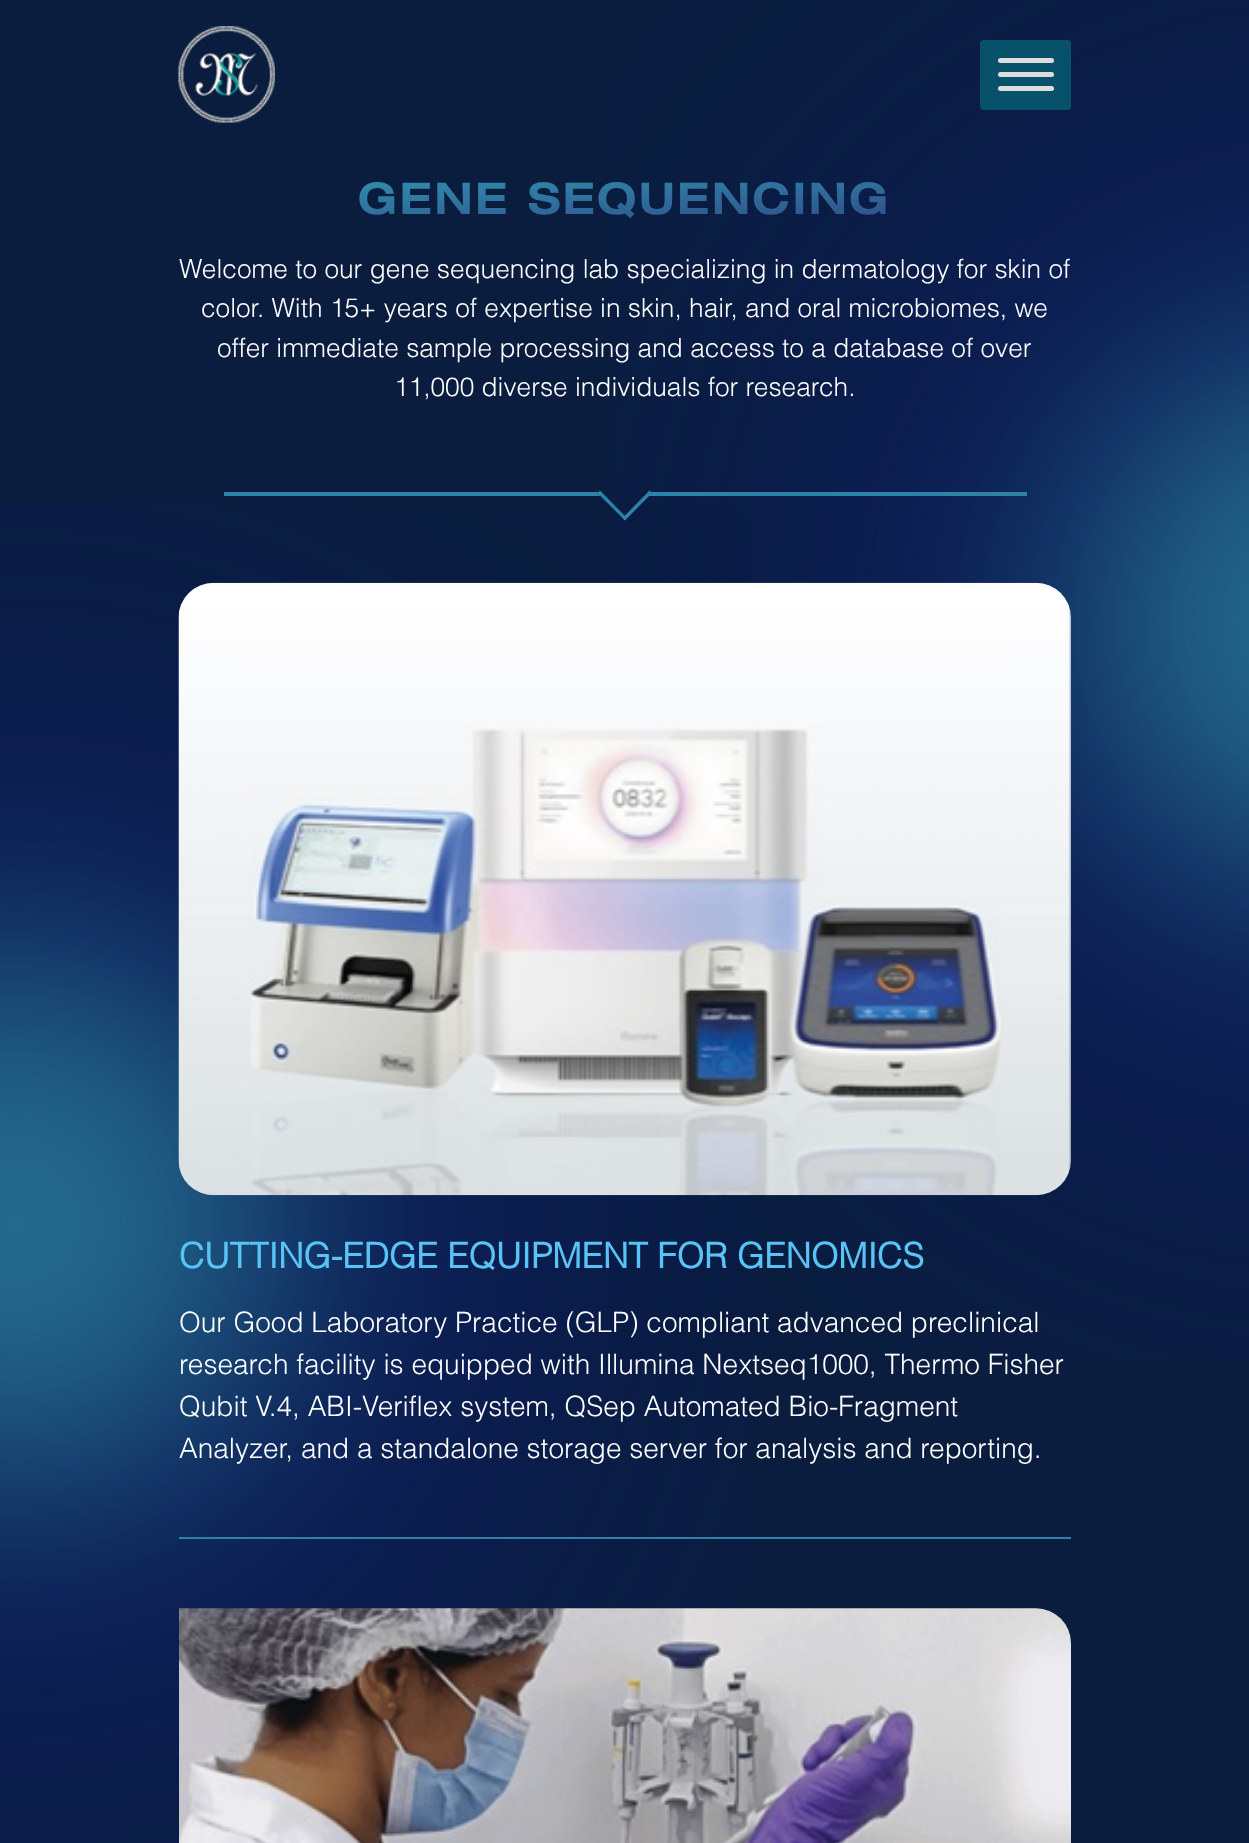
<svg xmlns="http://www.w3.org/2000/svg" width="1249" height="1843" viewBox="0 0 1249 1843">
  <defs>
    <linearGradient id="g1" gradientUnits="userSpaceOnUse" x1="628" y1="250" x2="622" y2="150"><stop offset="0" stop-color="#304284"/><stop offset="1" stop-color="#2f99b3"/></linearGradient>
  </defs>
  <rect width="100%" height="100%" fill="#0a1d3f"/>
  <image x="178" y="26" width="97" height="97" href="img1.png"/>
  <image x="0" y="503" width="748" height="1340" href="img5.png"/>
  <image x="610" y="0" width="639" height="1362" href="img2.png"/>
  <rect x="980" y="40" width="91" height="70" rx="4" fill="#07516a"/>
  <rect x="998" y="58" width="56" height="5" rx="2.5" fill="#dddddd"/>
  <rect x="998" y="72" width="56" height="5" rx="2.5" fill="#dddddd"/>
  <rect x="998" y="86" width="56" height="5" rx="2.5" fill="#dddddd"/>
  <text x="358" y="214" font-family="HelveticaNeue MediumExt" font-size="42" font-weight="bold" letter-spacing="3.5" fill="url(#g1)">GENE SEQUENCING</text>
  <text x="179" y="278" font-family="Helvetica" font-size="26.25" font-weight="300" fill="#ffffff">Welcome to our gene sequencing lab specializing in dermatology for skin of</text>
  <text x="201" y="317" font-family="Helvetica" font-size="26.25" font-weight="300" fill="#ffffff">color. With 15+ years of expertise in skin, hair, and oral microbiomes, we</text>
  <text x="217" y="357" font-family="Helvetica" font-size="26.25" font-weight="300" fill="#ffffff">offer immediate sample processing and access to a database of over</text>
  <text x="394" y="396" font-family="Helvetica" font-size="26.25" font-weight="300" fill="#ffffff">11,000 diverse individuals for research.</text>
  <rect x="224" y="492" width="376" height="4" fill="#2f82a7"/>
  <path d="M649.5 490.5L652 493L625 520.5L622.5 518Z" fill="#2f82a7"/>
  <path d="M600 490.5L627 518L625 520.5L597.5 493Z" fill="#2f82a7"/>
  <rect x="649" y="492" width="378" height="4" fill="#2f82a7"/>
  <rect x="179" y="1537" width="892" height="2" fill="#2f82a7"/>
  <image x="178" y="582" width="893" height="614" href="img3.png"/>
  <text x="179" y="1268" font-family="Helvetica" font-size="35" font-weight="bold" fill="#58c3f4">CUTTING-EDGE EQUIPMENT FOR GENOMICS</text>
  <text x="179" y="1332" font-family="Helvetica" font-size="28" font-weight="300" fill="#ffffff">Our Good Laboratory Practice (GLP) compliant advanced preclinical</text>
  <text x="179" y="1374" font-family="Helvetica" font-size="28" font-weight="300" fill="#ffffff">research facility is equipped with Illumina Nextseq1000, Thermo Fisher</text>
  <text x="179" y="1416" font-family="Helvetica" font-size="28" font-weight="300" fill="#ffffff">Qubit V.4, ABI-Veriflex system, QSep Automated Bio-Fragment</text>
  <text x="179" y="1458" font-family="Helvetica" font-size="28" font-weight="300" fill="#ffffff">Analyzer, and a standalone storage server for analysis and reporting.</text>
  <image x="179" y="1608" width="892" height="235" href="img4.png"/>
</svg>
